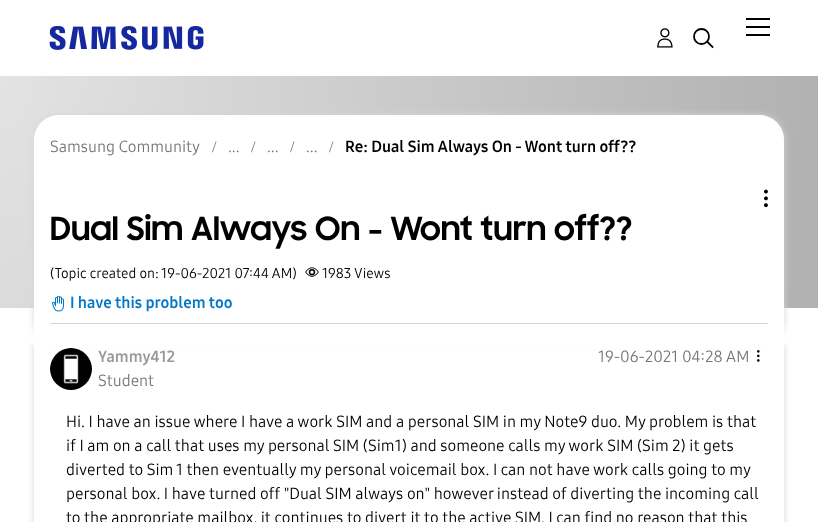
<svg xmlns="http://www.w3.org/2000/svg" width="818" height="522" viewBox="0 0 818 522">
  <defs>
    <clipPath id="clip1"><path d="M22 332H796V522H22ZM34 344H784V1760H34Z" clip-rule="evenodd"/></clipPath>
    <filter id="blur1" x="-50%" y="-200%" width="200%" height="500%"><feGaussianBlur stdDeviation="3.5"/></filter>
    <radialGradient id="g1" gradientUnits="userSpaceOnUse" cx="0" cy="0" r="1" gradientTransform="matrix(818 0 0 1440 0 68)"><stop offset="0" stop-color="#e3e3e3"/><stop offset="1" stop-color="#b1b1b1"/></radialGradient>
    <filter id="blur2" x="-50%" y="-200%" width="200%" height="500%"><feGaussianBlur stdDeviation="0.5"/></filter>
  </defs>
  <rect width="100%" height="100%" fill="#ffffff"/>
  <g clip-path="url(#clip1)">
    <rect x="34" y="344" width="750" height="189" fill="#d6d6d6" filter="url(#blur1)"/>
  </g>
  <rect x="30" y="339" width="758" height="5" fill="#ffffff"/>
  <image x="49" y="26" width="155" height="24" href="img1.png"/>
  <image x="657" y="28" width="16" height="20" href="img2.png"/>
  <circle cx="701.5" cy="36.5" r="7.5" fill="none" stroke="#000000" stroke-width="1.8"/>
  <path d="M708 42.5L712.5 47" fill="none" stroke="#000000" stroke-width="1.8" stroke-linecap="square"/>
  <rect x="746" y="18" width="24" height="2" fill="#000000"/>
  <rect x="746" y="26" width="24" height="2" fill="#000000"/>
  <rect x="746" y="34" width="24" height="2" fill="#000000"/>
  <rect x="0" y="76" width="818" height="232" fill="url(#g1)"/>
  <rect x="34" y="115" width="750" height="229" rx="25" fill="#d6d6d6" filter="url(#blur1)"/>
  <path d="M59 115H759C773 115 784 126 784 140V344H34V140C34 126 45 115 59 115Z" fill="#ffffff"/>
  <rect x="50" y="323" width="718" height="1" fill="#d6d6d6"/>
  <text x="50" y="152" font-family="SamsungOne" font-size="16" fill="#767676">Samsung Community</text>
  <text x="212" y="152" font-family="Liberation Serif" font-size="16" fill="#767676">/</text>
  <text x="228" y="152" font-family="SamsungOne" font-size="16" fill="#767676">...</text>
  <text x="251" y="152" font-family="Liberation Serif" font-size="16" fill="#767676">/</text>
  <text x="267" y="152" font-family="SamsungOne" font-size="16" fill="#767676">...</text>
  <text x="290" y="152" font-family="Liberation Serif" font-size="16" fill="#767676">/</text>
  <text x="306" y="152" font-family="SamsungOne" font-size="16" fill="#767676">...</text>
  <text x="329" y="152" font-family="Liberation Serif" font-size="16" fill="#767676">/</text>
  <text x="345" y="152" font-family="SamsungOne" font-size="16" font-weight="bold" fill="#000000">Re: Dual Sim Always On - Wont turn off??</text>
  <image x="764" y="189" width="4" height="19" href="img3.png"/>
  <text x="50" y="240" font-family="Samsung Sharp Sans" font-size="32" font-weight="bold" fill="#000000">Dual Sim Always On - Wont turn off??</text>
  <text x="50" y="278" font-family="SamsungOne" font-size="14" fill="#000000">(Topic created on: 19-06-2021 07:44 AM)</text>
  <image x="305" y="267" width="14" height="10" href="img4.png"/>
  <text x="322" y="278" font-family="SamsungOne" font-size="14" fill="#000000">1983 Views</text>
  <image x="52" y="296" width="12" height="16" href="img5.png"/>
  <text x="70" y="308" font-family="SamsungOne" font-size="16" font-weight="bold" fill="#0077c8">I have this problem too</text>
  <rect x="35" y="344" width="748" height="4" fill="#ffffff"/>
  <rect x="53" y="348" width="712" height="1" fill="#ffffff"/>
  <rect x="50" y="348" width="42" height="42" rx="21" fill="#999999" filter="url(#blur2)"/>
  <image x="50" y="348" width="42" height="42" href="img6.png"/>
  <text x="98" y="362" font-family="SamsungOne" font-size="16" font-weight="bold" fill="#999999">Yammy412</text>
  <text x="98" y="386" font-family="SamsungOne" font-size="16" fill="#767676">Student</text>
  <text x="598" y="362" font-family="SamsungOne" font-size="16" fill="#767676">19-06-2021 04:28 AM</text>
  <image x="757" y="350" width="3" height="12" href="img7.png"/>
  <text x="66" y="427" font-family="SamsungOne" font-size="16" fill="#000000">Hi. I have an issue where I have a work SIM and a personal SIM in my Note9 duo. My problem is that</text>
  <text x="66" y="451" font-family="SamsungOne" font-size="16" fill="#000000">if I am on a call that uses my personal SIM (Sim1) and someone calls my work SIM (Sim 2) it gets</text>
  <text x="66" y="475" font-family="SamsungOne" font-size="16" fill="#000000">diverted to Sim 1 then eventually my personal voicemail box. I can not have work calls going to my</text>
  <text x="66" y="499" font-family="SamsungOne" font-size="16" fill="#000000">personal box. I have turned off "Dual SIM always on" however instead of diverting the incoming call</text>
  <text x="66" y="523" font-family="SamsungOne" font-size="16" fill="#000000">to the appropriate mailbox, it continues to divert it to the active SIM. I can find no reason that this</text>
</svg>
